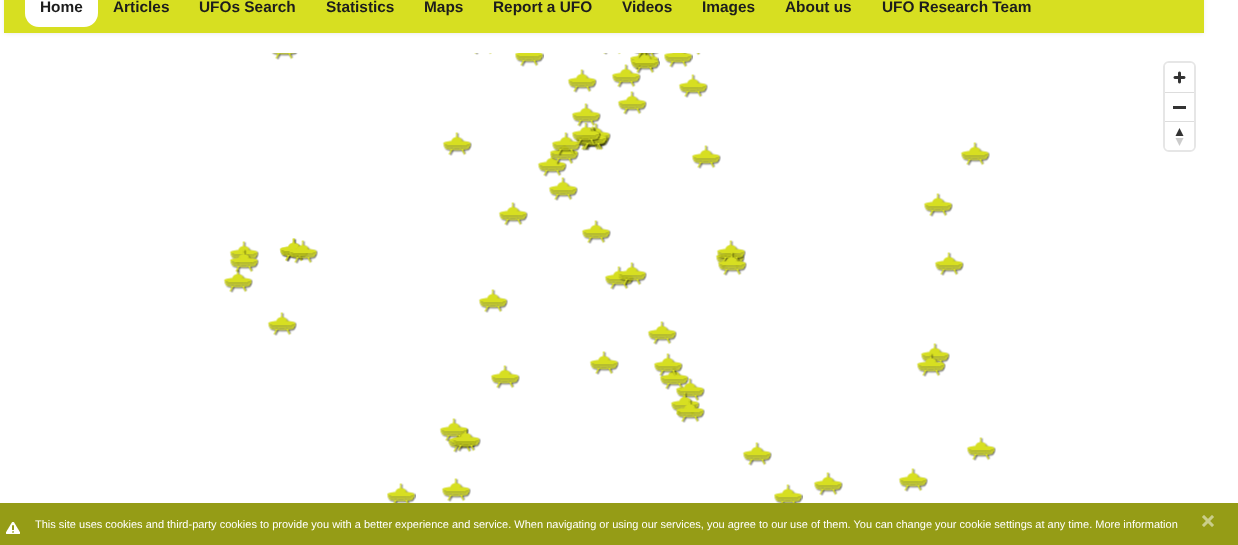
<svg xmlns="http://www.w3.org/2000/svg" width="1238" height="545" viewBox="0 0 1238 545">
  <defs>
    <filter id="blur1" x="-50%" y="-200%" width="200%" height="500%"><feGaussianBlur stdDeviation="2"/></filter>
  </defs>
  <rect width="100%" height="100%" fill="#ffffff"/>
  <rect x="4" y="29" width="1200" height="4" fill="#d7df21"/>
  <rect x="4" y="-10" width="1200" height="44" rx="4" fill="#000000" fill-opacity="0.07" filter="url(#blur1)"/>
  <rect x="4" y="-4" width="1200" height="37" rx="4" fill="#d7df21"/>
  <rect x="25" y="-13" width="73" height="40" rx="14" fill="#ffffff"/>
  <text x="40" y="12" font-family="Liberation Sans" font-size="15.4" font-weight="bold" fill="#1d1d1d">Home</text>
  <text x="113" y="12" font-family="Liberation Sans" font-size="15.4" font-weight="bold" fill="#1d1d1d">Articles</text>
  <text x="199" y="12" font-family="Liberation Sans" font-size="15.4" font-weight="bold" fill="#1d1d1d">UFOs Search</text>
  <text x="326" y="12" font-family="Liberation Sans" font-size="15.4" font-weight="bold" fill="#1d1d1d">Statistics</text>
  <text x="424" y="12" font-family="Liberation Sans" font-size="15.4" font-weight="bold" fill="#1d1d1d">Maps</text>
  <text x="493" y="12" font-family="Liberation Sans" font-size="15.4" font-weight="bold" fill="#1d1d1d">Report a UFO</text>
  <text x="622" y="12" font-family="Liberation Sans" font-size="15.4" font-weight="bold" fill="#1d1d1d">Videos</text>
  <text x="702" y="12" font-family="Liberation Sans" font-size="15.4" font-weight="bold" fill="#1d1d1d">Images</text>
  <text x="785" y="12" font-family="Liberation Sans" font-size="15.4" font-weight="bold" fill="#1d1d1d">About us</text>
  <text x="882" y="12" font-family="Liberation Sans" font-size="15.4" font-weight="bold" fill="#1d1d1d">UFO Research Team</text>
  <image x="271" y="53" width="27" height="7" href="img1.png"/>
  <image x="474" y="53" width="18" height="2" href="img2.png"/>
  <image x="515" y="53" width="29" height="14" href="img3.png"/>
  <image x="603" y="53" width="18" height="2" href="img2.png"/>
  <image x="630" y="53" width="29" height="18" href="img4.png"/>
  <image x="634" y="53" width="25" height="6" href="img6.png"/>
  <image x="631" y="53" width="29" height="21" href="img5.png"/>
  <image x="682" y="53" width="19" height="3" href="img8.png"/>
  <image x="664" y="53" width="29" height="15" href="img7.png"/>
  <image x="567" y="69" width="30" height="24" href="img9.png"/>
  <image x="611" y="64" width="30" height="24" href="img10.png"/>
  <image x="678" y="74" width="30" height="24" href="img9.png"/>
  <image x="582" y="123" width="29" height="24" href="img13.png"/>
  <image x="571" y="103" width="30" height="24" href="img11.png"/>
  <image x="617" y="91" width="30" height="24" href="img9.png"/>
  <image x="579" y="127" width="30" height="24" href="img18.png"/>
  <image x="537" y="153" width="30" height="24" href="img9.png"/>
  <image x="549" y="141" width="30" height="24" href="img19.png"/>
  <image x="551" y="132" width="30" height="24" href="img17.png"/>
  <image x="575" y="127" width="30" height="24" href="img15.png"/>
  <image x="578" y="127" width="29" height="24" href="img16.png"/>
  <image x="578" y="126" width="30" height="24" href="img14.png"/>
  <image x="571" y="122" width="30" height="24" href="img12.png"/>
  <image x="442" y="132" width="30" height="24" href="img9.png"/>
  <image x="691" y="145" width="30" height="24" href="img9.png"/>
  <image x="960" y="142" width="30" height="24" href="img9.png"/>
  <image x="548" y="177" width="30" height="24" href="img9.png"/>
  <image x="498" y="202" width="30" height="24" href="img9.png"/>
  <image x="923" y="193" width="30" height="24" href="img9.png"/>
  <image x="581" y="220" width="30" height="24" href="img9.png"/>
  <image x="279" y="238" width="30" height="24" href="img9.png"/>
  <image x="279" y="238" width="30" height="24" href="img20.png"/>
  <image x="229" y="241" width="30" height="24" href="img9.png"/>
  <image x="289" y="240" width="29" height="24" href="img21.png"/>
  <image x="715" y="245" width="30" height="24" href="img9.png"/>
  <image x="716" y="240" width="30" height="23" href="img22.png"/>
  <image x="223" y="269" width="30" height="24" href="img9.png"/>
  <image x="229" y="249" width="30" height="24" href="img23.png"/>
  <image x="604" y="266" width="30" height="24" href="img9.png"/>
  <image x="618" y="262" width="29" height="24" href="img24.png"/>
  <image x="717" y="252" width="30" height="24" href="img25.png"/>
  <image x="934" y="252" width="30" height="24" href="img9.png"/>
  <image x="478" y="289" width="30" height="24" href="img9.png"/>
  <image x="267" y="312" width="30" height="24" href="img9.png"/>
  <image x="647" y="321" width="30" height="24" href="img9.png"/>
  <image x="589" y="351" width="30" height="24" href="img9.png"/>
  <image x="675" y="378" width="30" height="24" href="img9.png"/>
  <image x="659" y="366" width="30" height="24" href="img27.png"/>
  <image x="653" y="353" width="30" height="24" href="img26.png"/>
  <image x="920" y="343" width="30" height="24" href="img9.png"/>
  <image x="490" y="365" width="30" height="24" href="img9.png"/>
  <image x="916" y="353" width="30" height="24" href="img28.png"/>
  <image x="670" y="392" width="30" height="24" href="img29.png"/>
  <image x="675" y="399" width="30" height="24" href="img30.png"/>
  <image x="447" y="430" width="30" height="23" href="img33.png"/>
  <image x="439" y="418" width="30" height="24" href="img31.png"/>
  <image x="451" y="428" width="30" height="24" href="img32.png"/>
  <image x="742" y="442" width="30" height="24" href="img9.png"/>
  <image x="966" y="437" width="30" height="24" href="img9.png"/>
  <image x="387" y="483" width="29" height="20" href="img34.png"/>
  <image x="441" y="478" width="30" height="24" href="img9.png"/>
  <image x="774" y="484" width="29" height="19" href="img35.png"/>
  <image x="813" y="472" width="30" height="24" href="img9.png"/>
  <image x="898" y="468" width="30" height="24" href="img9.png"/>
  <rect x="1164" y="62" width="31" height="89" rx="5" fill="none" stroke="#e6e6e6" stroke-width="2"/>
  <rect x="1165" y="63" width="29" height="87" rx="4" fill="#ffffff"/>
  <image x="1173" y="71" width="13" height="13" href="img36.png"/>
  <rect x="1165" y="92" width="29" height="1" fill="#dddddd"/>
  <rect x="1173" y="106" width="13" height="3" fill="#333333"/>
  <rect x="1165" y="121" width="29" height="1" fill="#dddddd"/>
  <image x="1175" y="128" width="9" height="18" href="img37.png"/>
  <rect x="0" y="503" width="1238" height="42" fill="#959c16"/>
  <image x="6" y="522" width="14" height="12" href="img38.png"/>
  <text x="35" y="528" font-family="Liberation Sans" font-size="11" fill="#ffffff">This site uses cookies and third-party cookies to provide you with a better experience and service. When navigating or using our services, you agree to our use of them. You can change your cookie settings at any time. More information</text>
  <image x="1202" y="515" width="12" height="12" href="img39.png"/>
</svg>
